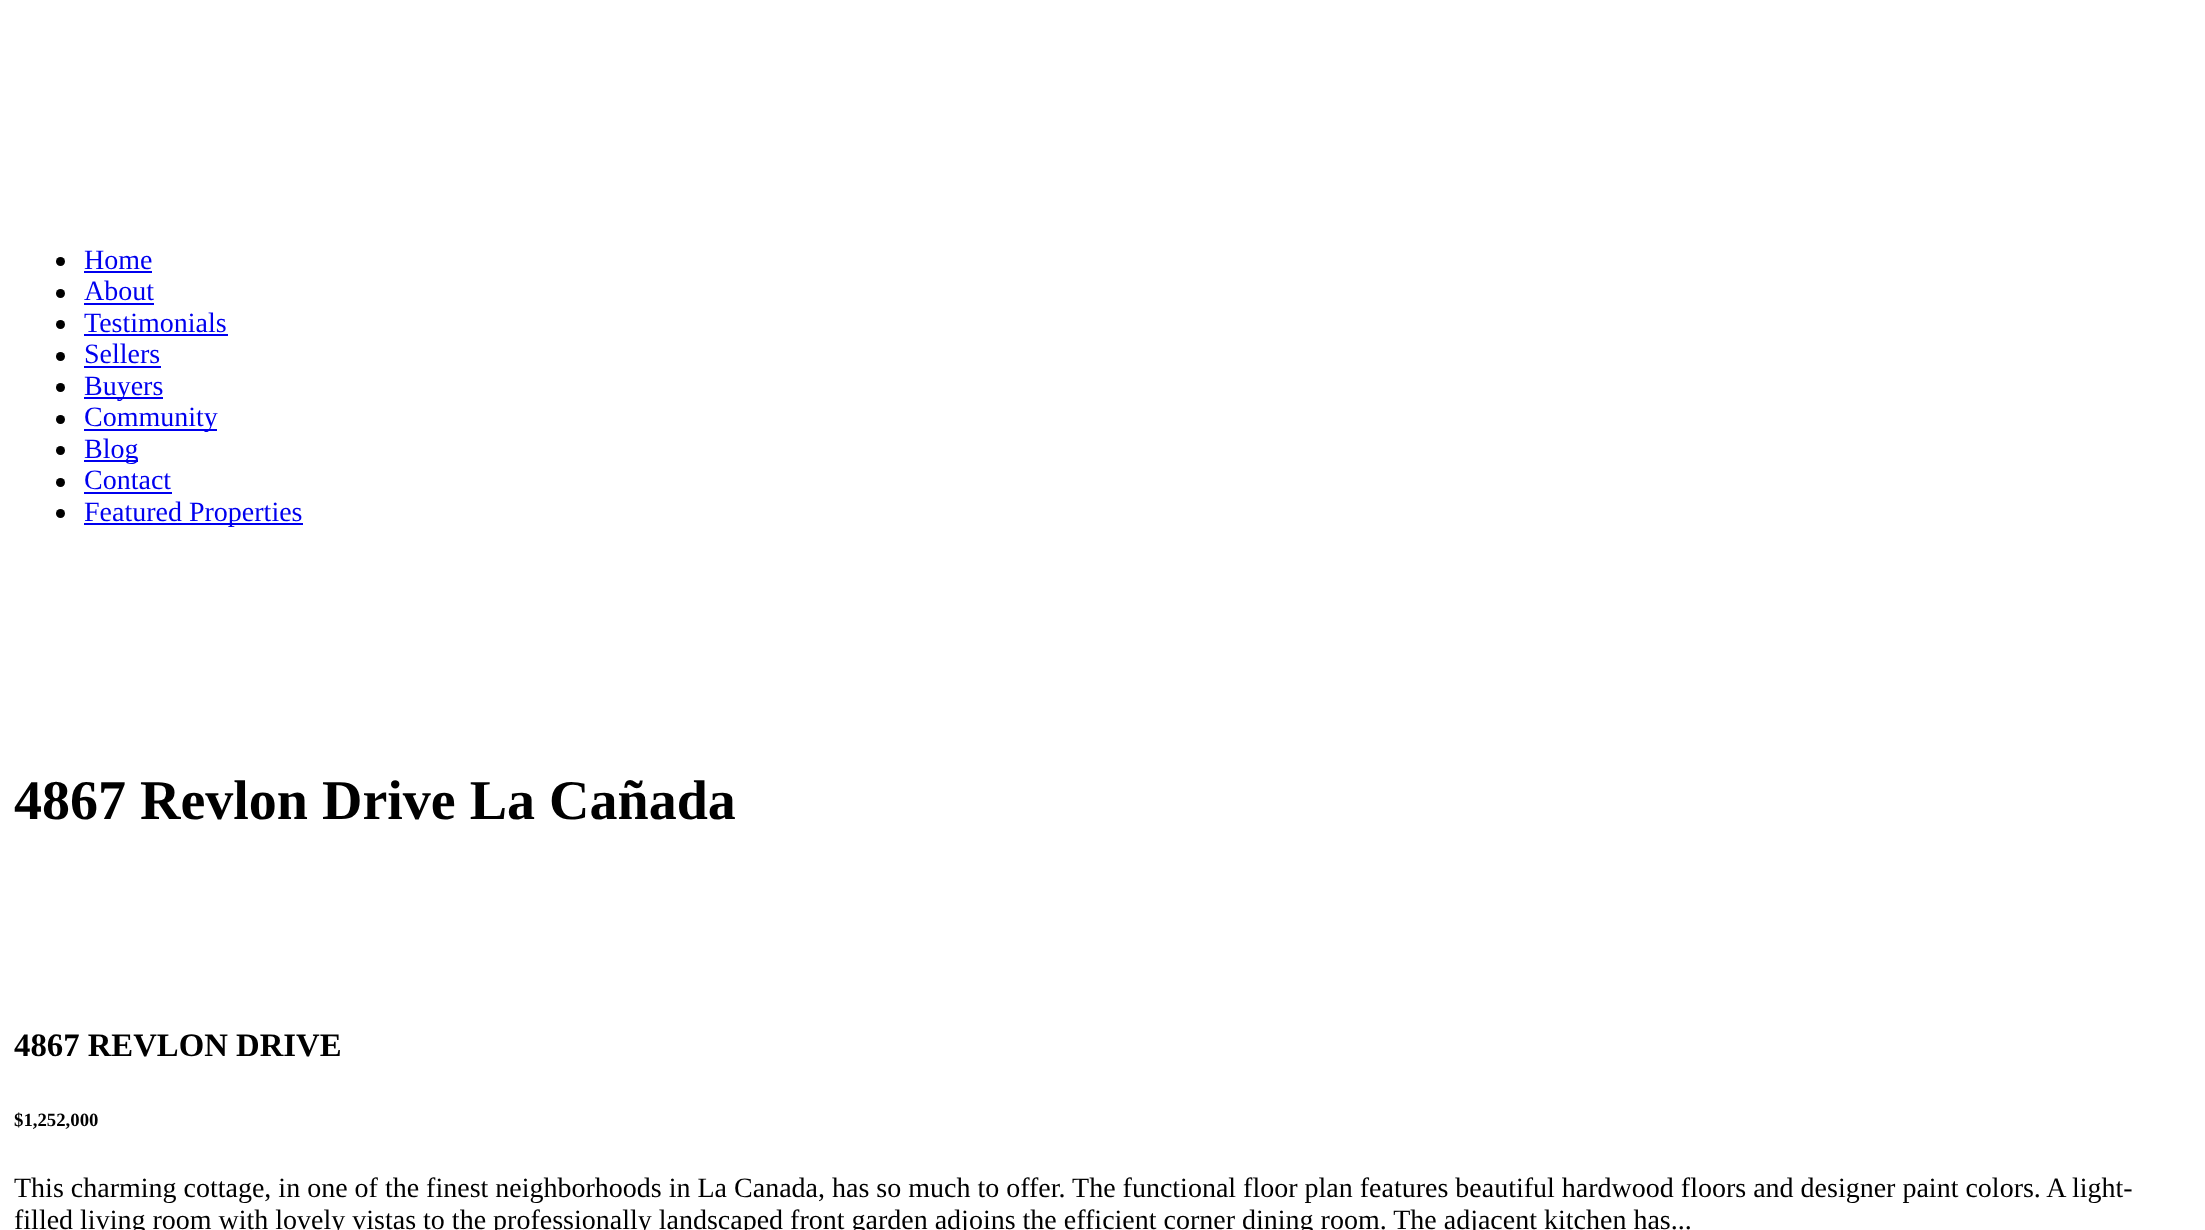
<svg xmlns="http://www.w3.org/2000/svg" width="2205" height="1230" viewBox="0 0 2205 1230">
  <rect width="100%" height="100%" fill="#ffffff"/>
  <circle cx="60.5" cy="261.5" r="4.5" fill="#000000"/>
  <text x="84" y="269" font-family="Liberation Serif" font-size="28" fill="#0000ee">Home</text>
  <rect x="84" y="271" width="68" height="2" fill="#0000ee"/>
  <circle cx="60.5" cy="293.5" r="4.5" fill="#000000"/>
  <text x="84" y="300" font-family="Liberation Serif" font-size="28" fill="#0000ee">About</text>
  <rect x="84" y="303" width="70" height="2" fill="#0000ee"/>
  <circle cx="60.5" cy="324.5" r="4.5" fill="#000000"/>
  <text x="84" y="332" font-family="Liberation Serif" font-size="28" fill="#0000ee">Testimonials</text>
  <rect x="84" y="334" width="144" height="2" fill="#0000ee"/>
  <circle cx="60.5" cy="356.5" r="4.5" fill="#000000"/>
  <text x="84" y="363" font-family="Liberation Serif" font-size="28" fill="#0000ee">Sellers</text>
  <rect x="84" y="366" width="77" height="2" fill="#0000ee"/>
  <circle cx="60.5" cy="387.5" r="4.5" fill="#000000"/>
  <rect x="84" y="397" width="79" height="2" fill="#0000ee"/>
  <text x="84" y="395" font-family="Liberation Serif" font-size="28" fill="#0000ee">Buyers</text>
  <circle cx="60.5" cy="419.5" r="4.5" fill="#000000"/>
  <rect x="84" y="429" width="133" height="2" fill="#0000ee"/>
  <text x="84" y="426" font-family="Liberation Serif" font-size="28" fill="#0000ee">Community</text>
  <circle cx="60.5" cy="450.5" r="4.5" fill="#000000"/>
  <rect x="84" y="460" width="54" height="2" fill="#0000ee"/>
  <text x="84" y="458" font-family="Liberation Serif" font-size="28" fill="#0000ee">Blog</text>
  <circle cx="60.5" cy="482.5" r="4.5" fill="#000000"/>
  <text x="84" y="489" font-family="Liberation Serif" font-size="28" fill="#0000ee">Contact</text>
  <rect x="84" y="492" width="88" height="2" fill="#0000ee"/>
  <circle cx="60.5" cy="513.5" r="4.5" fill="#000000"/>
  <rect x="84" y="523" width="219" height="2" fill="#0000ee"/>
  <text x="84" y="521" font-family="Liberation Serif" font-size="28" fill="#0000ee">Featured Properties</text>
  <text x="14" y="819" font-family="Liberation Serif" font-size="56" font-weight="bold" fill="#000000">4867 Revlon Drive La Cañada</text>
  <text x="14" y="1056" font-family="Liberation Serif" font-size="32.75" font-weight="bold" fill="#000000">4867 REVLON DRIVE</text>
  <text x="14" y="1126" font-family="Liberation Serif" font-size="18.75" font-weight="bold" fill="#000000">$1,252,000</text>
  <text x="14" y="1197" font-family="Liberation Serif" font-size="28" fill="#000000">This charming cottage, in one of the finest neighborhoods in La Canada, has so much to offer. The functional floor plan features beautiful hardwood floors and designer paint colors. A light-</text>
  <text x="14" y="1229" font-family="Liberation Serif" font-size="28" fill="#000000">filled living room with lovely vistas to the professionally landscaped front garden adjoins the efficient corner dining room. The adjacent kitchen has...</text>
</svg>
